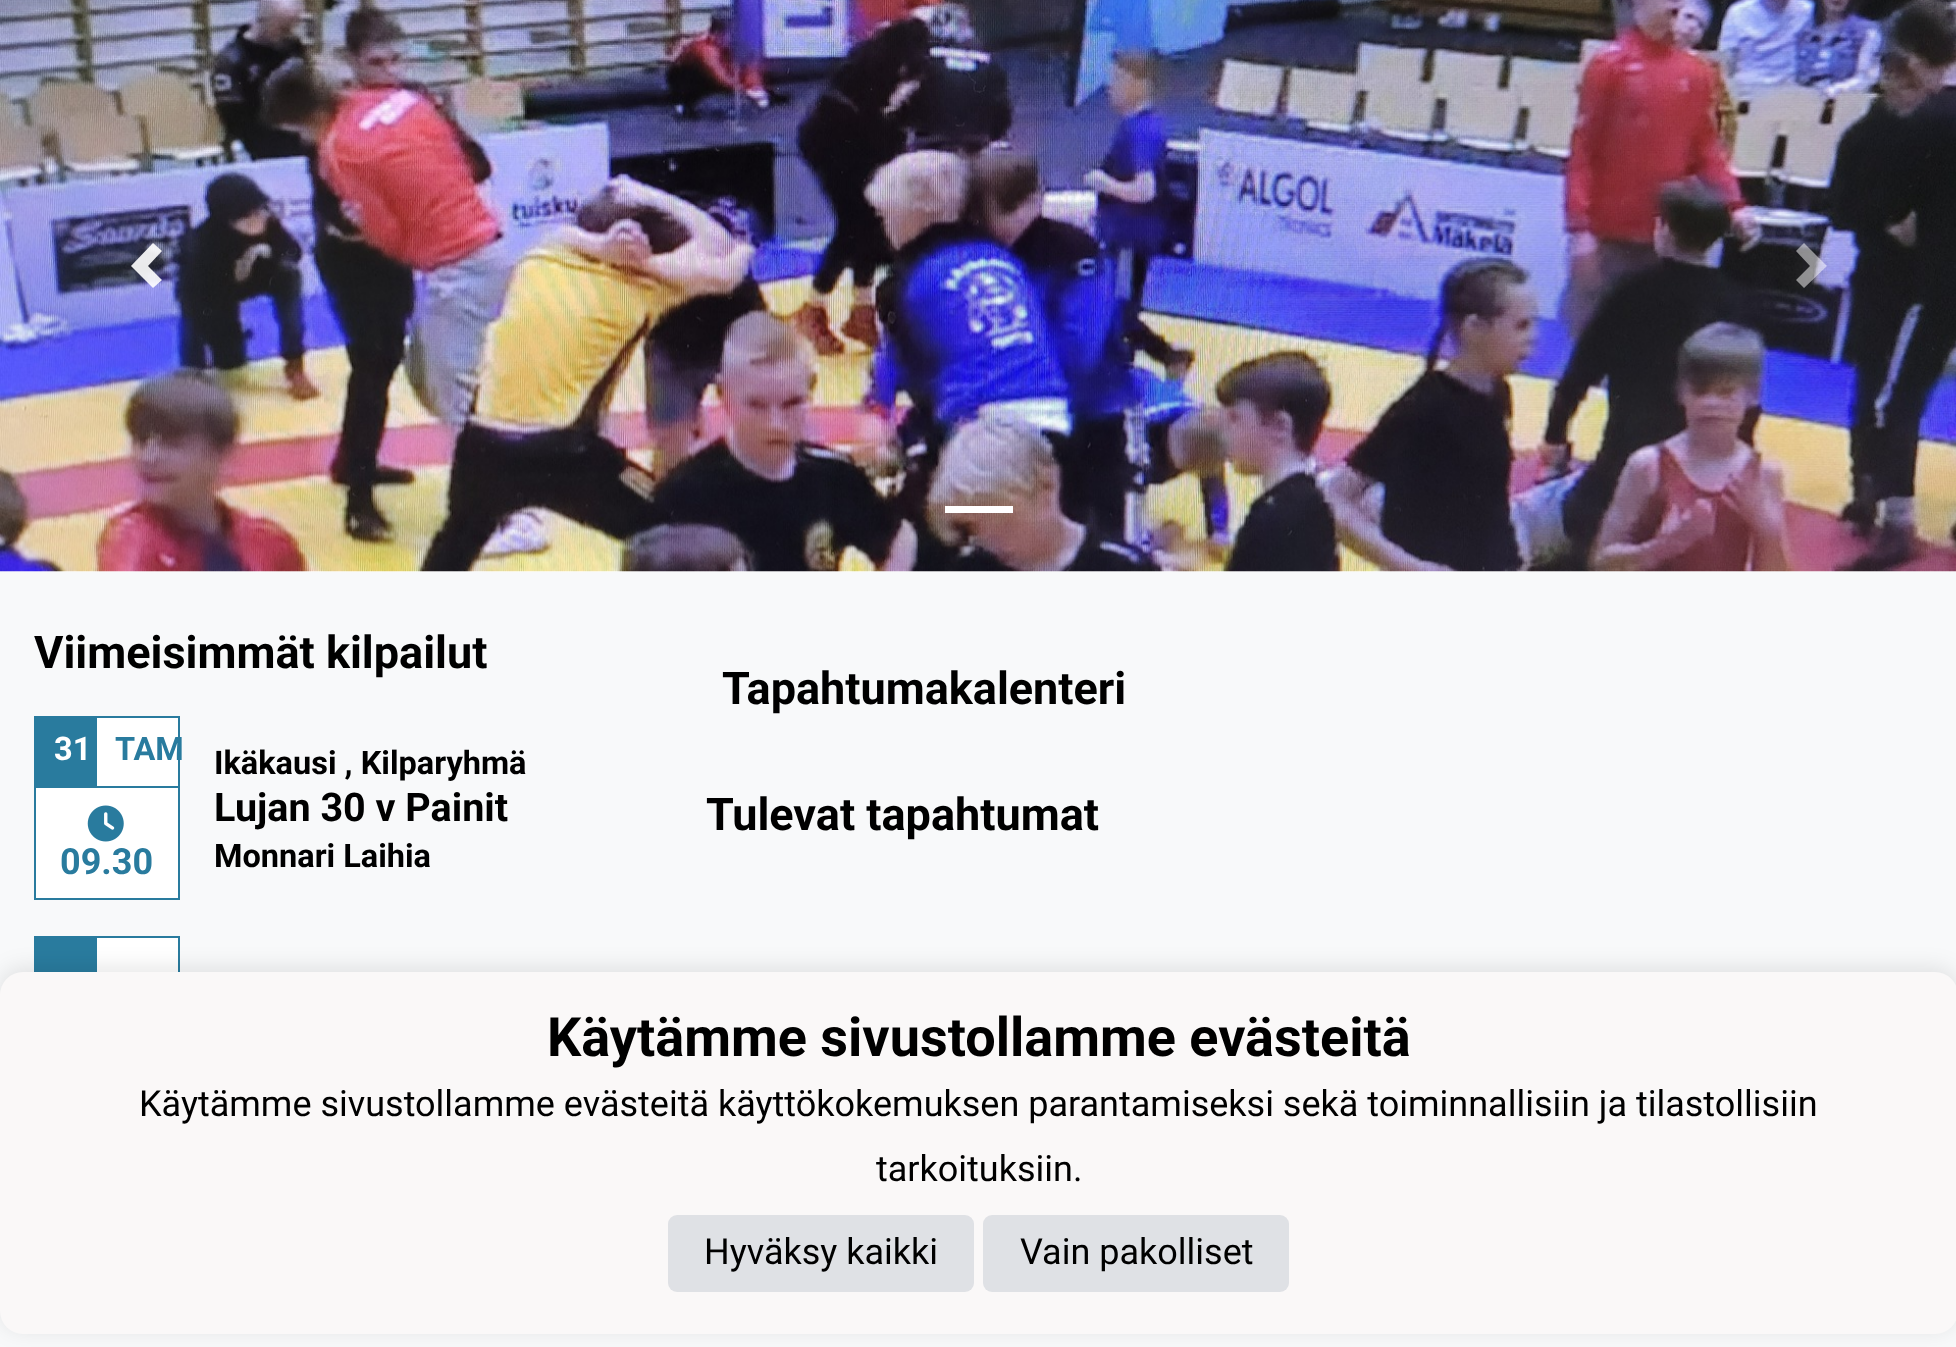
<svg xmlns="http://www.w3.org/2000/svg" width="1956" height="1347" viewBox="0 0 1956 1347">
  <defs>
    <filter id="blur1" x="-50%" y="-200%" width="200%" height="500%"><feGaussianBlur stdDeviation="11"/></filter>
  </defs>
  <rect width="100%" height="100%" fill="#ffffff"/>
  <image x="0" y="0" width="1956" height="572" href="img1.png"/>
  <path d="M153 243L131 266L153 288L162 280L148 266L162 251Z" fill="#ffffff" fill-opacity="0.9"/>
  <path d="M1804 243L1796 251L1810 266L1796 280L1804 288L1827 266Z" fill="#ffffff" fill-opacity="0.5"/>
  <rect x="945" y="506" width="68" height="7" fill="#ffffff"/>
  <rect x="0" y="572" width="1956" height="775" fill="#f8f9fa"/>
  <text x="34" y="668" font-family="Roboto" font-size="45" font-weight="bold" fill="#000000">Viimeisimmät kilpailut</text>
  <rect x="34" y="716" width="61" height="72" fill="#297b9e"/>
  <text x="54" y="760" font-family="Roboto" font-size="32.5" font-weight="bold" fill="#ffffff">31</text>
  <rect x="96" y="717" width="83" height="70" fill="#ffffff" stroke="#297b9e" stroke-width="2"/>
  <text x="115" y="760" font-family="Roboto" font-size="32.5" font-weight="bold" fill="#297b9e">TAM</text>
  <rect x="36" y="788" width="142" height="110" fill="#ffffff"/>
  <rect x="178" y="788" width="2" height="112" fill="#297b9e"/>
  <rect x="34" y="898" width="146" height="2" fill="#297b9e"/>
  <rect x="34" y="788" width="2" height="112" fill="#297b9e"/>
  <image x="87" y="805" width="37" height="37" href="img2.png"/>
  <text x="60" y="874" font-family="Roboto" font-size="36" font-weight="bold" fill="#297b9e">09.30</text>
  <text x="214" y="774" font-family="Roboto" font-size="32.5" font-weight="bold" fill="#000000">Ikäkausi , Kilparyhmä</text>
  <text x="214" y="821" font-family="Roboto" font-size="39.5" font-weight="bold" fill="#000000">Lujan 30 v Painit</text>
  <text x="214" y="867" font-family="Roboto" font-size="32.5" font-weight="bold" fill="#000000">Monnari Laihia</text>
  <rect x="34" y="936" width="61" height="36" fill="#297b9e"/>
  <rect x="97" y="938" width="81" height="34" fill="#ffffff"/>
  <rect x="96" y="937" width="83" height="72" fill="none" stroke="#297b9e" stroke-width="2"/>
  <text x="722" y="704" font-family="Roboto" font-size="45" font-weight="bold" fill="#000000">Tapahtumakalenteri</text>
  <text x="706" y="830" font-family="Roboto" font-size="45" font-weight="bold" fill="#000000">Tulevat tapahtumat</text>
  <rect x="0" y="968" width="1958" height="362" rx="23" fill="#000000" fill-opacity="0.1" filter="url(#blur1)"/>
  <rect x="0" y="972" width="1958" height="362" rx="23" fill="#faf8f8"/>
  <text x="547" y="1056" font-family="Roboto" font-size="54" font-weight="bold" fill="#000000">Käytämme sivustollamme evästeitä</text>
  <text x="139" y="1116" font-family="Roboto" font-size="36" fill="#000000">Käytämme sivustollamme evästeitä käyttökokemuksen parantamiseksi sekä toiminnallisiin ja tilastollisiin</text>
  <text x="876" y="1181" font-family="Roboto" font-size="36" fill="#000000">tarkoituksiin.</text>
  <rect x="668" y="1215" width="306" height="77" rx="9" fill="#dfe1e5"/>
  <text x="704" y="1264" font-family="Roboto" font-size="36" fill="#000000">Hyväksy kaikki</text>
  <rect x="983" y="1215" width="306" height="77" rx="9" fill="#dfe1e5"/>
  <text x="1020" y="1264" font-family="Roboto" font-size="36" fill="#000000">Vain pakolliset</text>
</svg>
